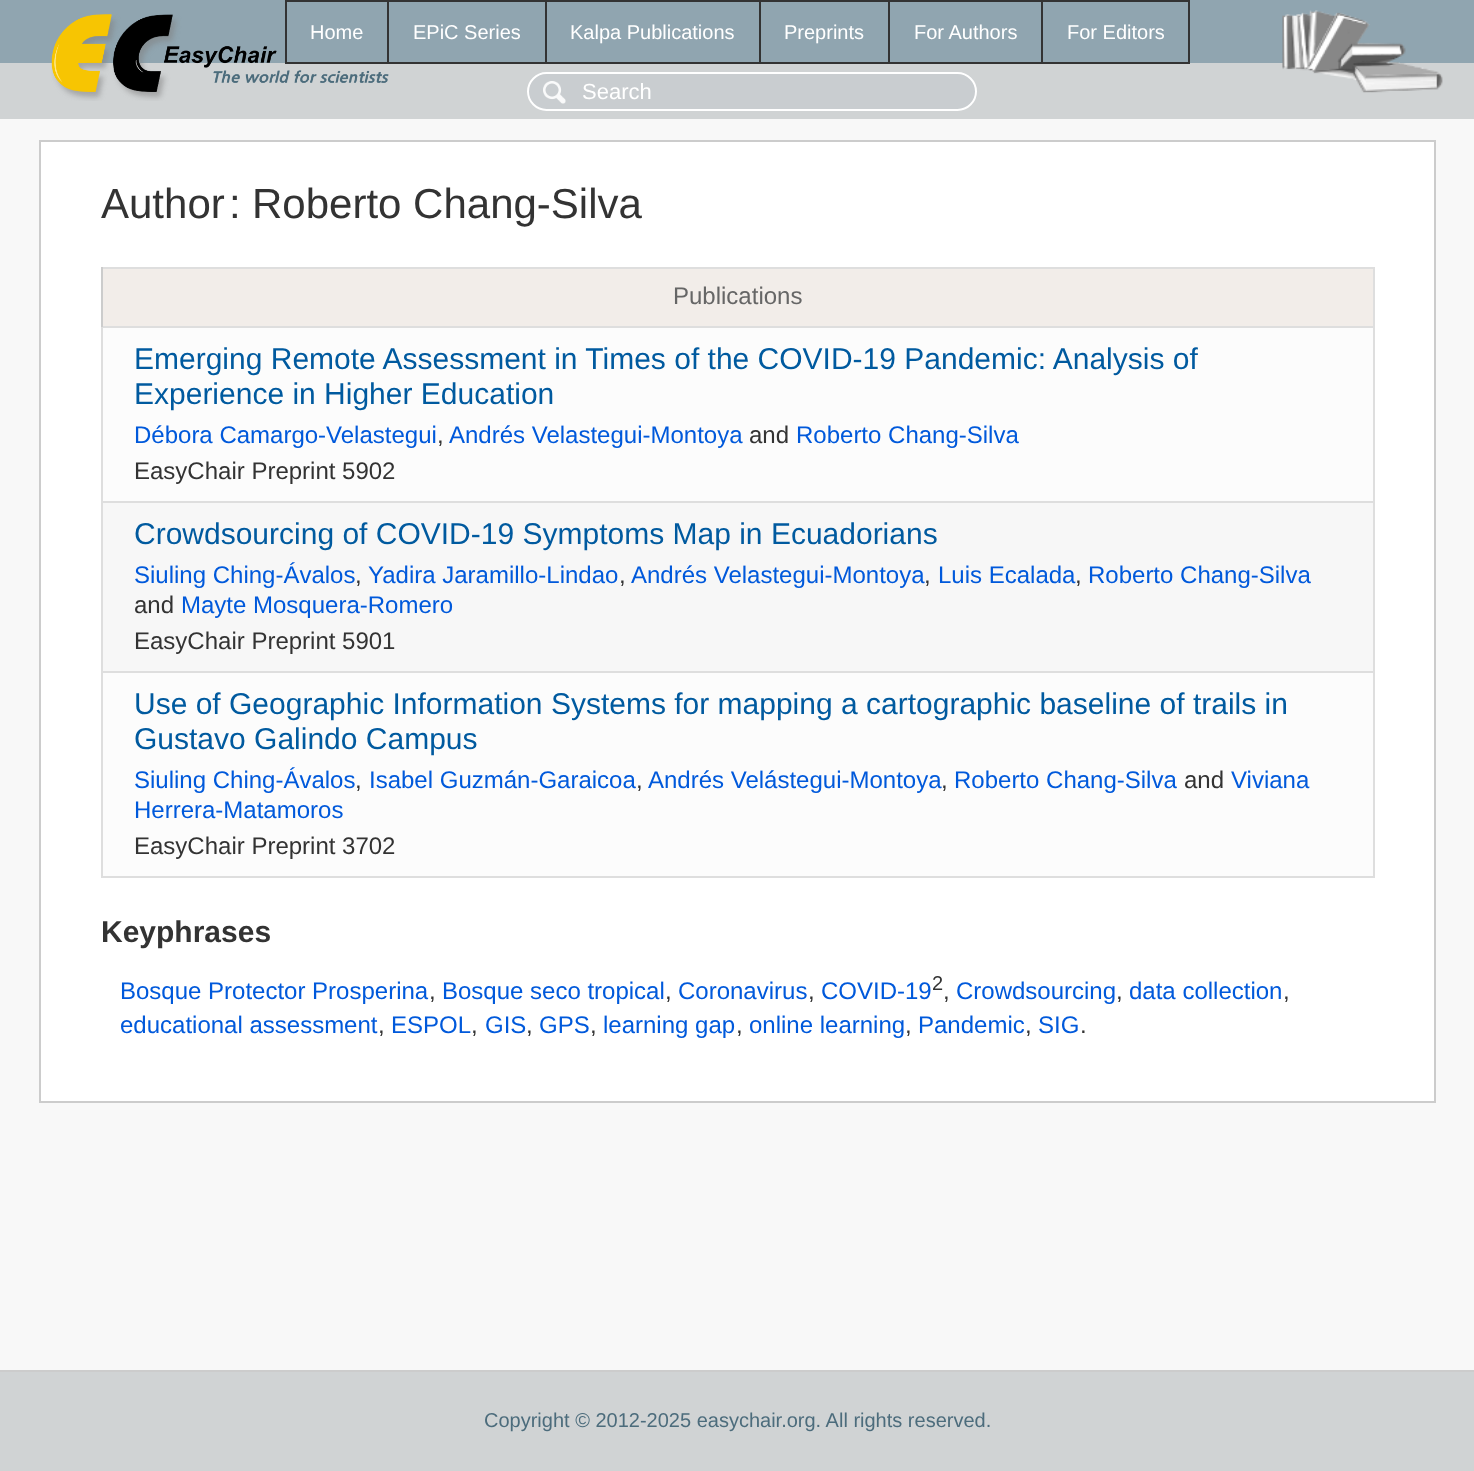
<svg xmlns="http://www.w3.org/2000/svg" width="1474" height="1471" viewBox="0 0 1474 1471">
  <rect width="100%" height="100%" fill="#90a5b0"/>
  <rect x="0" y="65" width="1473" height="52" fill="#d0d3d4"/>
  <rect x="0" y="63" width="1474" height="2" fill="#d0d3d4"/>
  <image x="51" y="14" width="338" height="87" href="img1.png"/>
  <rect x="1041" y="0" width="149" height="2" fill="#333333"/>
  <rect x="1188" y="0" width="2" height="63" fill="#333333"/>
  <rect x="1041" y="62" width="149" height="2" fill="#333333"/>
  <rect x="1041" y="0" width="2" height="63" fill="#333333"/>
  <rect x="888" y="0" width="155" height="2" fill="#333333"/>
  <rect x="888" y="62" width="155" height="2" fill="#333333"/>
  <rect x="888" y="0" width="2" height="63" fill="#333333"/>
  <rect x="759" y="0" width="131" height="2" fill="#333333"/>
  <rect x="759" y="62" width="131" height="2" fill="#333333"/>
  <rect x="759" y="0" width="2" height="63" fill="#333333"/>
  <rect x="545" y="0" width="216" height="2" fill="#333333"/>
  <rect x="545" y="62" width="216" height="2" fill="#333333"/>
  <rect x="545" y="0" width="2" height="63" fill="#333333"/>
  <rect x="387" y="0" width="159" height="2" fill="#333333"/>
  <rect x="387" y="62" width="159" height="2" fill="#333333"/>
  <rect x="387" y="0" width="2" height="63" fill="#333333"/>
  <rect x="285" y="0" width="104" height="2" fill="#333333"/>
  <rect x="285" y="62" width="104" height="2" fill="#333333"/>
  <rect x="285" y="0" width="2" height="63" fill="#333333"/>
  <text x="310" y="39" font-family="Liberation Sans" font-size="20" fill="#ffffff">Home</text>
  <text x="413" y="39" font-family="Liberation Sans" font-size="20" fill="#ffffff">EPiC Series</text>
  <text x="570" y="39" font-family="Liberation Sans" font-size="20" fill="#ffffff">Kalpa Publications</text>
  <text x="784" y="39" font-family="Liberation Sans" font-size="20" fill="#ffffff">Preprints</text>
  <text x="914" y="39" font-family="Liberation Sans" font-size="20" fill="#ffffff">For Authors</text>
  <text x="1067" y="39" font-family="Liberation Sans" font-size="20" fill="#ffffff">For Editors</text>
  <image x="1282" y="10" width="161" height="83" href="img2.png"/>
  <rect x="1473" y="63" width="1" height="56" fill="#d0d3d4"/>
  <rect x="0" y="117" width="1474" height="2" fill="#d0d3d4"/>
  <rect x="527" y="72" width="450" height="39" rx="19.5" fill="#c9cdd0"/>
  <image x="543" y="81" width="23" height="23" href="img3.png"/>
  <rect x="528" y="73" width="448" height="37" rx="18.5" fill="none" stroke="#ffffff" stroke-width="2"/>
  <text x="582" y="99" font-family="Liberation Sans" font-size="22" fill="#ffffff">Search</text>
  <rect x="0" y="119" width="1474" height="1251" fill="#f8f8f8"/>
  <rect x="40" y="141" width="1395" height="961" fill="#ffffff" stroke="#cccccc" stroke-width="2"/>
  <text x="101" y="218" font-family="Liberation Sans" font-size="42" fill="#333333">Author</text>
  <text x="229" y="218" font-family="Liberation Sans" font-size="42" fill="#333333">:</text>
  <text x="252" y="218" font-family="Liberation Sans" font-size="42" fill="#333333">Roberto Chang-Silva</text>
  <rect x="101" y="267" width="1273" height="2" fill="#dedede"/>
  <rect x="1373" y="267" width="2" height="611" fill="#dedede"/>
  <rect x="101" y="876" width="1273" height="2" fill="#dedede"/>
  <rect x="101" y="328" width="2" height="550" fill="#dedede"/>
  <rect x="103" y="269" width="1270" height="57" fill="#f2ede9"/>
  <rect x="101" y="326" width="1273" height="2" fill="#dedede"/>
  <rect x="101" y="267" width="2" height="60" fill="#cccccc"/>
  <text x="673" y="304" font-family="Liberation Sans" font-size="24" fill="#666666">Publications</text>
  <rect x="103" y="328" width="1270" height="173" fill="#fcfcfc"/>
  <rect x="101" y="501" width="1273" height="2" fill="#dedede"/>
  <text x="134" y="369" font-family="Liberation Sans" font-size="30" fill="#005a9f">Emerging Remote Assessment in Times of the COVID-19 Pandemic: Analysis of</text>
  <text x="134" y="404" font-family="Liberation Sans" font-size="30" fill="#005a9f">Experience in Higher Education</text>
  <text x="134" y="443" font-family="Liberation Sans" font-size="24" fill="#0059db">Débora Camargo-Velastegui</text>
  <text x="437" y="443" font-family="Liberation Sans" font-size="24" fill="#333333">,</text>
  <text x="449" y="443" font-family="Liberation Sans" font-size="24" fill="#0059db">Andrés Velastegui-Montoya</text>
  <text x="749" y="443" font-family="Liberation Sans" font-size="24" fill="#333333">and</text>
  <text x="796" y="443" font-family="Liberation Sans" font-size="24" fill="#0059db">Roberto Chang-Silva</text>
  <text x="134" y="479" font-family="Liberation Sans" font-size="24" fill="#333333">EasyChair Preprint 5902</text>
  <rect x="103" y="503" width="1270" height="168" fill="#f7f7f7"/>
  <rect x="101" y="671" width="1273" height="2" fill="#dedede"/>
  <text x="134" y="544" font-family="Liberation Sans" font-size="30" fill="#005a9f">Crowdsourcing of COVID-19 Symptoms Map in Ecuadorians</text>
  <text x="134" y="583" font-family="Liberation Sans" font-size="24" fill="#0059db">Siuling Ching-Ávalos</text>
  <text x="355" y="583" font-family="Liberation Sans" font-size="24" fill="#333333">,</text>
  <text x="368" y="583" font-family="Liberation Sans" font-size="24" fill="#0059db">Yadira Jaramillo-Lindao</text>
  <text x="619" y="583" font-family="Liberation Sans" font-size="24" fill="#333333">,</text>
  <text x="631" y="583" font-family="Liberation Sans" font-size="24" fill="#0059db">Andrés Velastegui-Montoya</text>
  <text x="924" y="583" font-family="Liberation Sans" font-size="24" fill="#333333">,</text>
  <text x="938" y="583" font-family="Liberation Sans" font-size="24" fill="#0059db">Luis Ecalada</text>
  <text x="1075" y="583" font-family="Liberation Sans" font-size="24" fill="#333333">,</text>
  <text x="1088" y="583" font-family="Liberation Sans" font-size="24" fill="#0059db">Roberto Chang-Silva</text>
  <text x="134" y="613" font-family="Liberation Sans" font-size="24" fill="#333333">and</text>
  <text x="181" y="613" font-family="Liberation Sans" font-size="24" fill="#0059db">Mayte Mosquera-Romero</text>
  <text x="134" y="649" font-family="Liberation Sans" font-size="24" fill="#333333">EasyChair Preprint 5901</text>
  <rect x="103" y="673" width="1270" height="203" fill="#fcfcfc"/>
  <text x="134" y="714" font-family="Liberation Sans" font-size="30" fill="#005a9f">Use of Geographic Information Systems for mapping a cartographic baseline of trails in</text>
  <text x="134" y="749" font-family="Liberation Sans" font-size="30" fill="#005a9f">Gustavo Galindo Campus</text>
  <text x="134" y="788" font-family="Liberation Sans" font-size="24" fill="#0059db">Siuling Ching-Ávalos</text>
  <text x="355" y="788" font-family="Liberation Sans" font-size="24" fill="#333333">,</text>
  <text x="369" y="788" font-family="Liberation Sans" font-size="24" fill="#0059db">Isabel Guzmán-Garaicoa</text>
  <text x="636" y="788" font-family="Liberation Sans" font-size="24" fill="#333333">,</text>
  <text x="648" y="788" font-family="Liberation Sans" font-size="24" fill="#0059db">Andrés Velástegui-Montoya</text>
  <text x="941" y="788" font-family="Liberation Sans" font-size="24" fill="#333333">,</text>
  <text x="954" y="788" font-family="Liberation Sans" font-size="24" fill="#0059db">Roberto Chang-Silva</text>
  <text x="1184" y="788" font-family="Liberation Sans" font-size="24" fill="#333333">and</text>
  <text x="1231" y="788" font-family="Liberation Sans" font-size="24" fill="#0059db">Viviana</text>
  <text x="134" y="818" font-family="Liberation Sans" font-size="24" fill="#0059db">Herrera-Matamoros</text>
  <text x="134" y="854" font-family="Liberation Sans" font-size="24" fill="#333333">EasyChair Preprint 3702</text>
  <text x="101" y="942" font-family="Liberation Sans" font-size="30" font-weight="bold" fill="#333333">Keyphrases</text>
  <text x="120" y="999" font-family="Liberation Sans" font-size="24" fill="#0059db">Bosque Protector Prosperina</text>
  <text x="429" y="999" font-family="Liberation Sans" font-size="24" fill="#333333">,</text>
  <text x="442" y="999" font-family="Liberation Sans" font-size="24" fill="#0059db">Bosque seco tropical</text>
  <text x="665" y="999" font-family="Liberation Sans" font-size="24" fill="#333333">,</text>
  <text x="678" y="999" font-family="Liberation Sans" font-size="24" fill="#0059db">Coronavirus</text>
  <text x="808" y="999" font-family="Liberation Sans" font-size="24" fill="#333333">,</text>
  <text x="821" y="999" font-family="Liberation Sans" font-size="24" fill="#0059db">COVID-19</text>
  <text x="932" y="990" font-family="Liberation Sans" font-size="20" fill="#333333">2</text>
  <text x="943" y="999" font-family="Liberation Sans" font-size="24" fill="#333333">,</text>
  <text x="956" y="999" font-family="Liberation Sans" font-size="24" fill="#0059db">Crowdsourcing</text>
  <text x="1116" y="999" font-family="Liberation Sans" font-size="24" fill="#333333">,</text>
  <text x="1129" y="999" font-family="Liberation Sans" font-size="24" fill="#0059db">data collection</text>
  <text x="1283" y="999" font-family="Liberation Sans" font-size="24" fill="#333333">,</text>
  <text x="120" y="1033" font-family="Liberation Sans" font-size="24" fill="#0059db">educational assessment</text>
  <text x="378" y="1033" font-family="Liberation Sans" font-size="24" fill="#333333">,</text>
  <text x="391" y="1033" font-family="Liberation Sans" font-size="24" fill="#0059db">ESPOL</text>
  <text x="471" y="1033" font-family="Liberation Sans" font-size="24" fill="#333333">,</text>
  <text x="485" y="1033" font-family="Liberation Sans" font-size="24" fill="#0059db">GIS</text>
  <text x="526" y="1033" font-family="Liberation Sans" font-size="24" fill="#333333">,</text>
  <text x="539" y="1033" font-family="Liberation Sans" font-size="24" fill="#0059db">GPS</text>
  <text x="590" y="1033" font-family="Liberation Sans" font-size="24" fill="#333333">,</text>
  <text x="603" y="1033" font-family="Liberation Sans" font-size="24" fill="#0059db">learning gap</text>
  <text x="736" y="1033" font-family="Liberation Sans" font-size="24" fill="#333333">,</text>
  <text x="749" y="1033" font-family="Liberation Sans" font-size="24" fill="#0059db">online learning</text>
  <text x="905" y="1033" font-family="Liberation Sans" font-size="24" fill="#333333">,</text>
  <text x="918" y="1033" font-family="Liberation Sans" font-size="24" fill="#0059db">Pandemic</text>
  <text x="1025" y="1033" font-family="Liberation Sans" font-size="24" fill="#333333">,</text>
  <text x="1038" y="1033" font-family="Liberation Sans" font-size="24" fill="#0059db">SIG</text>
  <text x="1080" y="1033" font-family="Liberation Sans" font-size="24" fill="#333333">.</text>
  <rect x="0" y="1372" width="1474" height="99" fill="#d0d3d4"/>
  <rect x="0" y="1370" width="1474" height="2" fill="#cccccc"/>
  <text x="484" y="1427" font-family="Liberation Sans" font-size="20" fill="#4c6c7c">Copyright © 2012-2025 easychair.org. All rights reserved.</text>
</svg>
